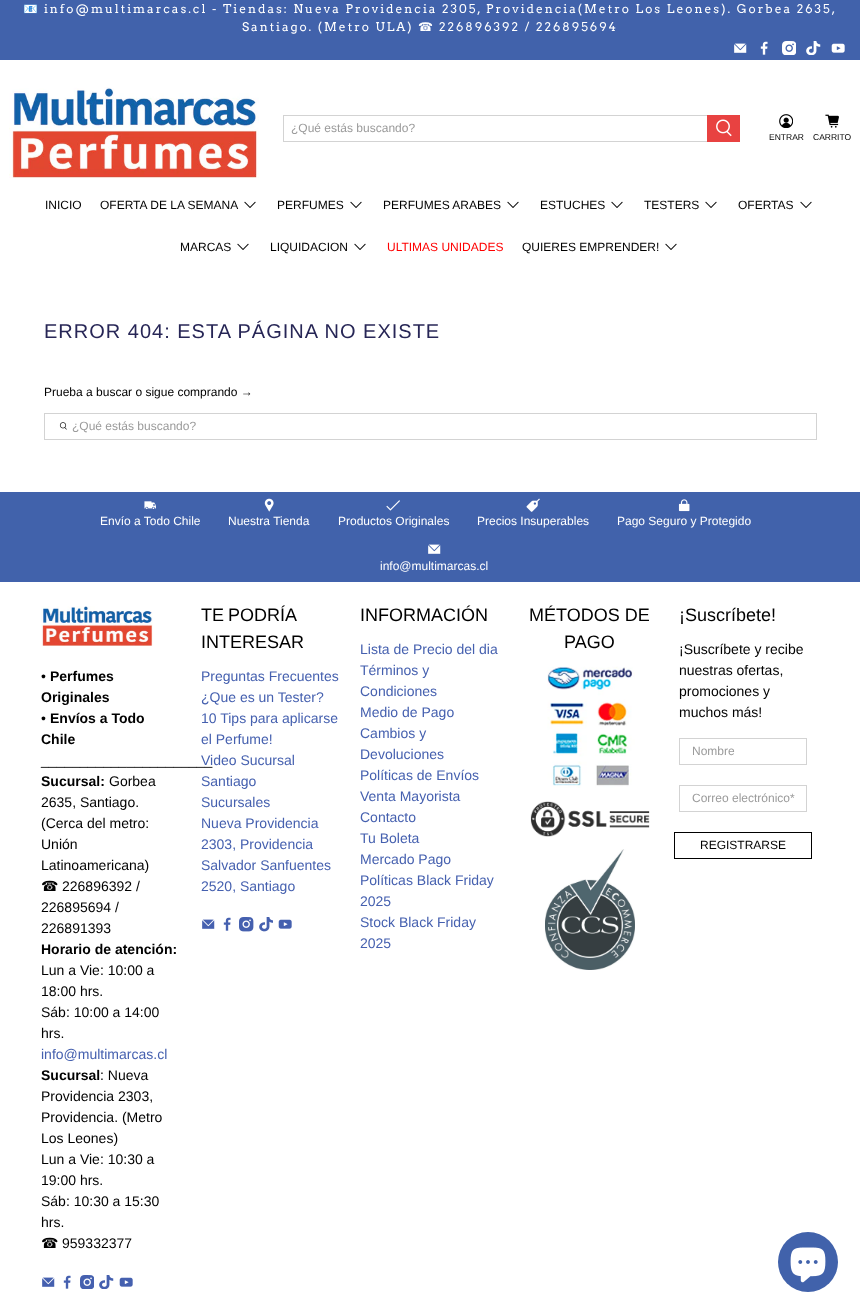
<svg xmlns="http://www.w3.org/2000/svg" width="860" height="1313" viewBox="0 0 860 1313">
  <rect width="100%" height="100%" fill="#ffffff"/>
  <rect x="0" y="0" width="860" height="60" fill="#4162ab"/>
  <text x="23" y="13" font-family="Noto Color Emoji" font-size="12" letter-spacing="2" fill="#ffffff">📧</text>
  <text x="44" y="13" font-family="Arvo" font-size="12" letter-spacing="2" fill="#ffffff">info@multimarcas.cl - Tiendas: Nueva Providencia 2305, Providencia(Metro Los Leones). Gorbea 2635,</text>
  <text x="242" y="31" font-family="Arvo" font-size="12" letter-spacing="2" fill="#ffffff">Santiago. (Metro ULA)</text>
  <text x="418" y="31" font-family="DejaVu Sans" font-size="12" letter-spacing="2" fill="#ffffff">☎</text>
  <text x="439" y="31" font-family="Arvo" font-size="12" letter-spacing="2" fill="#ffffff">226896392 / 226895694</text>
  <image x="734" y="43" width="13" height="10" href="img1.png"/>
  <image x="760" y="41" width="8" height="14" href="img2.png"/>
  <image x="782" y="41" width="14" height="14" href="img3.png"/>
  <image x="806" y="41" width="15" height="14" href="img4.png"/>
  <image x="831" y="43" width="14" height="10" href="img5.png"/>
  <image x="9" y="87" width="250" height="91" href="img6.png"/>
  <rect x="283.5" y="115.5" width="424" height="26" fill="none" stroke="#d3d3d3"/>
  <text x="291" y="132" font-family="Liberation Sans" font-size="12" fill="#9b9b9b">¿Qué estás buscando?</text>
  <rect x="707" y="115" width="33" height="27" fill="#e84241"/>
  <image x="716" y="119" width="16" height="18" href="img7.png"/>
  <image x="779" y="114" width="14" height="14" href="img8.png"/>
  <text x="769" y="140" font-family="Liberation Sans" font-size="8.5" fill="#000000">ENTRAR</text>
  <image x="825" y="114" width="14" height="14" href="img9.png"/>
  <text x="813" y="140" font-family="Liberation Sans" font-size="8.5" fill="#000000">CARRITO</text>
  <text x="45" y="209" font-family="Liberation Sans" font-size="12" fill="#000000">INICIO</text>
  <text x="100" y="209" font-family="Liberation Sans" font-size="12" fill="#000000">OFERTA DE LA SEMANA</text>
  <image x="244" y="201" width="12" height="7" href="img10.png"/>
  <text x="277" y="209" font-family="Liberation Sans" font-size="12" fill="#000000">PERFUMES</text>
  <image x="350" y="201" width="12" height="7" href="img10.png"/>
  <text x="383" y="209" font-family="Liberation Sans" font-size="12" fill="#000000">PERFUMES ARABES</text>
  <image x="507" y="201" width="12" height="7" href="img10.png"/>
  <text x="540" y="209" font-family="Liberation Sans" font-size="12" fill="#000000">ESTUCHES</text>
  <image x="611" y="201" width="12" height="7" href="img10.png"/>
  <text x="644" y="209" font-family="Liberation Sans" font-size="12" fill="#000000">TESTERS</text>
  <image x="705" y="201" width="12" height="7" href="img10.png"/>
  <text x="738" y="209" font-family="Liberation Sans" font-size="12" fill="#000000">OFERTAS</text>
  <image x="800" y="201" width="12" height="7" href="img10.png"/>
  <text x="180" y="251" font-family="Liberation Sans" font-size="12" fill="#000000">MARCAS</text>
  <image x="237" y="243" width="12" height="7" href="img10.png"/>
  <text x="270" y="251" font-family="Liberation Sans" font-size="12" fill="#000000">LIQUIDACION</text>
  <image x="354" y="243" width="12" height="7" href="img10.png"/>
  <text x="387" y="251" font-family="Liberation Sans" font-size="12" fill="#ff0000">ULTIMAS UNIDADES</text>
  <text x="522" y="251" font-family="Liberation Sans" font-size="12" fill="#000000">QUIERES EMPRENDER!</text>
  <image x="665" y="243" width="12" height="7" href="img10.png"/>
  <text x="44" y="338" font-family="Liberation Sans" font-size="20" letter-spacing="1" fill="#272656">ERROR 404: ESTA PÁGINA NO EXISTE</text>
  <text x="44" y="396" font-family="Liberation Sans" font-size="12" fill="#000000">Prueba a buscar o sigue comprando →</text>
  <rect x="44.5" y="413.5" width="772" height="26" fill="none" stroke="#d3d3d3"/>
  <image x="59" y="422" width="8" height="8" href="img11.png"/>
  <text x="72" y="430" font-family="Liberation Sans" font-size="12" fill="#9b9b9b">¿Qué estás buscando?</text>
  <rect x="0" y="492" width="860" height="89" fill="#4162ab"/>
  <image x="144" y="501" width="12" height="8" href="img12.png"/>
  <text x="100" y="525" font-family="Liberation Sans" font-size="12" fill="#ffffff">Envío a Todo Chile</text>
  <image x="264" y="498" width="10" height="14" href="img13.png"/>
  <text x="228" y="525" font-family="Liberation Sans" font-size="12" fill="#ffffff">Nuestra Tienda</text>
  <image x="386" y="500" width="14" height="11" href="img14.png"/>
  <text x="338" y="525" font-family="Liberation Sans" font-size="12" fill="#ffffff">Productos Originales</text>
  <image x="526" y="498" width="14" height="14" href="img15.png"/>
  <text x="477" y="525" font-family="Liberation Sans" font-size="12" fill="#ffffff">Precios Insuperables</text>
  <image x="678" y="499" width="12" height="13" href="img16.png"/>
  <text x="617" y="525" font-family="Liberation Sans" font-size="12" fill="#ffffff">Pago Seguro y Protegido</text>
  <image x="428" y="544" width="13" height="10" href="img1.png"/>
  <text x="380" y="570" font-family="Liberation Sans" font-size="12" fill="#ffffff">info@multimarcas.cl</text>
  <rect x="0" y="581" width="860" height="1" fill="#4162ad"/>
  <image x="41" y="606" width="112" height="40" href="img17.png"/>
  <text x="41" y="681" font-family="Liberation Sans" font-size="14" fill="#000000">•</text>
  <text x="50" y="681" font-family="Liberation Sans" font-size="14" font-weight="bold" fill="#000000">Perfumes</text>
  <text x="41" y="702" font-family="Liberation Sans" font-size="14" font-weight="bold" fill="#000000">Originales</text>
  <text x="41" y="723" font-family="Liberation Sans" font-size="14" fill="#000000">•</text>
  <text x="50" y="723" font-family="Liberation Sans" font-size="14" font-weight="bold" fill="#000000">Envíos a Todo</text>
  <text x="41" y="744" font-family="Liberation Sans" font-size="14" font-weight="bold" fill="#000000">Chile</text>
  <text x="41" y="765" font-family="Liberation Sans" font-size="14" fill="#000000">______________________</text>
  <text x="41" y="786" font-family="Liberation Sans" font-size="14" font-weight="bold" fill="#000000">Sucursal:</text>
  <text x="109" y="786" font-family="Liberation Sans" font-size="14" fill="#000000">Gorbea</text>
  <text x="41" y="807" font-family="Liberation Sans" font-size="14" fill="#000000">2635, Santiago.</text>
  <text x="41" y="828" font-family="Liberation Sans" font-size="14" fill="#000000">(Cerca del metro:</text>
  <text x="41" y="849" font-family="Liberation Sans" font-size="14" fill="#000000">Unión</text>
  <text x="41" y="870" font-family="Liberation Sans" font-size="14" fill="#000000">Latinoamericana)</text>
  <text x="41" y="891" font-family="DejaVu Sans" font-size="14" fill="#000000">☎</text>
  <text x="62" y="891" font-family="Liberation Sans" font-size="14" fill="#000000">226896392 /</text>
  <text x="41" y="912" font-family="Liberation Sans" font-size="14" fill="#000000">226895694 /</text>
  <text x="41" y="933" font-family="Liberation Sans" font-size="14" fill="#000000">226891393</text>
  <text x="41" y="954" font-family="Liberation Sans" font-size="14" font-weight="bold" fill="#000000">Horario de atención:</text>
  <text x="41" y="975" font-family="Liberation Sans" font-size="14" fill="#000000">Lun a Vie: 10:00 a</text>
  <text x="41" y="996" font-family="Liberation Sans" font-size="14" fill="#000000">18:00 hrs.</text>
  <text x="41" y="1017" font-family="Liberation Sans" font-size="14" fill="#000000">Sáb: 10:00 a 14:00</text>
  <text x="41" y="1038" font-family="Liberation Sans" font-size="14" fill="#000000">hrs.</text>
  <text x="41" y="1059" font-family="Liberation Sans" font-size="14" fill="#4560af">info@multimarcas.cl</text>
  <text x="41" y="1080" font-family="Liberation Sans" font-size="14" font-weight="bold" fill="#000000">Sucursal</text>
  <text x="100" y="1080" font-family="Liberation Sans" font-size="14" fill="#000000">: Nueva</text>
  <text x="41" y="1101" font-family="Liberation Sans" font-size="14" fill="#000000">Providencia 2303,</text>
  <text x="41" y="1122" font-family="Liberation Sans" font-size="14" fill="#000000">Providencia. (Metro</text>
  <text x="41" y="1143" font-family="Liberation Sans" font-size="14" fill="#000000">Los Leones)</text>
  <text x="41" y="1164" font-family="Liberation Sans" font-size="14" fill="#000000">Lun a Vie: 10:30 a</text>
  <text x="41" y="1185" font-family="Liberation Sans" font-size="14" fill="#000000">19:00 hrs.</text>
  <text x="41" y="1206" font-family="Liberation Sans" font-size="14" fill="#000000">Sáb: 10:30 a 15:30</text>
  <text x="41" y="1227" font-family="Liberation Sans" font-size="14" fill="#000000">hrs.</text>
  <text x="41" y="1248" font-family="DejaVu Sans" font-size="14" fill="#000000">☎</text>
  <text x="62" y="1248" font-family="Liberation Sans" font-size="14" fill="#000000">959332377</text>
  <image x="42" y="1277" width="13" height="10" href="img18.png"/>
  <image x="63" y="1275" width="8" height="14" href="img19.png"/>
  <image x="80" y="1275" width="14" height="14" href="img20.png"/>
  <image x="99" y="1275" width="15" height="14" href="img21.png"/>
  <image x="119" y="1277" width="14" height="10" href="img22.png"/>
  <text x="201" y="621" word-spacing="-1" font-family="Liberation Sans" font-size="18" fill="#000000">TE PODRÍA</text>
  <text x="201" y="648" font-family="Liberation Sans" font-size="18" fill="#000000">INTERESAR</text>
  <text x="201" y="681" font-family="Liberation Sans" font-size="14" fill="#4560af">Preguntas Frecuentes</text>
  <text x="201" y="702" font-family="Liberation Sans" font-size="14" fill="#4560af">¿Que es un Tester?</text>
  <text x="201" y="723" font-family="Liberation Sans" font-size="14" fill="#4560af">10 Tips para aplicarse</text>
  <text x="201" y="744" font-family="Liberation Sans" font-size="14" fill="#4560af">el Perfume!</text>
  <text x="201" y="765" font-family="Liberation Sans" font-size="14" fill="#4560af">Video Sucursal</text>
  <text x="201" y="786" font-family="Liberation Sans" font-size="14" fill="#4560af">Santiago</text>
  <text x="201" y="807" font-family="Liberation Sans" font-size="14" fill="#4560af">Sucursales</text>
  <text x="201" y="828" font-family="Liberation Sans" font-size="14" fill="#4560af">Nueva Providencia</text>
  <text x="201" y="849" font-family="Liberation Sans" font-size="14" fill="#4560af">2303, Providencia</text>
  <text x="201" y="870" font-family="Liberation Sans" font-size="14" fill="#4560af">Salvador Sanfuentes</text>
  <text x="201" y="891" font-family="Liberation Sans" font-size="14" fill="#4560af">2520, Santiago</text>
  <image x="202" y="919" width="13" height="10" href="img18.png"/>
  <image x="223" y="917" width="8" height="14" href="img19.png"/>
  <image x="239" y="917" width="15" height="15" href="img23.png"/>
  <image x="259" y="917" width="14" height="15" href="img24.png"/>
  <image x="278" y="919" width="14" height="10" href="img22.png"/>
  <text x="360" y="621" font-family="Liberation Sans" font-size="18" fill="#000000">INFORMACIÓN</text>
  <text x="360" y="654" font-family="Liberation Sans" font-size="14" fill="#4560af">Lista de Precio del dia</text>
  <text x="360" y="675" font-family="Liberation Sans" font-size="14" fill="#4560af">Términos y</text>
  <text x="360" y="696" font-family="Liberation Sans" font-size="14" fill="#4560af">Condiciones</text>
  <text x="360" y="717" font-family="Liberation Sans" font-size="14" fill="#4560af">Medio de Pago</text>
  <text x="360" y="738" font-family="Liberation Sans" font-size="14" fill="#4560af">Cambios y</text>
  <text x="360" y="759" font-family="Liberation Sans" font-size="14" fill="#4560af">Devoluciones</text>
  <text x="360" y="780" font-family="Liberation Sans" font-size="14" fill="#4560af">Políticas de Envíos</text>
  <text x="360" y="801" font-family="Liberation Sans" font-size="14" fill="#4560af">Venta Mayorista</text>
  <text x="360" y="822" font-family="Liberation Sans" font-size="14" fill="#4560af">Contacto</text>
  <text x="360" y="843" font-family="Liberation Sans" font-size="14" fill="#4560af">Tu Boleta</text>
  <text x="360" y="864" font-family="Liberation Sans" font-size="14" fill="#4560af">Mercado Pago</text>
  <text x="360" y="885" font-family="Liberation Sans" font-size="14" fill="#4560af">Políticas Black Friday</text>
  <text x="360" y="906" font-family="Liberation Sans" font-size="14" fill="#4560af">2025</text>
  <text x="360" y="927" font-family="Liberation Sans" font-size="14" fill="#4560af">Stock Black Friday</text>
  <text x="360" y="948" font-family="Liberation Sans" font-size="14" fill="#4560af">2025</text>
  <text x="529" y="621" font-family="Liberation Sans" font-size="18" fill="#000000">MÉTODOS DE</text>
  <text x="564" y="648" font-family="Liberation Sans" font-size="18" fill="#000000">PAGO</text>
  <image x="547" y="666" width="88" height="122" href="img25.png"/>
  <image x="530" y="801" width="120" height="36" href="img26.png"/>
  <image x="545" y="849" width="90" height="121" href="img27.png"/>
  <text x="679" y="621" font-family="Liberation Sans" font-size="18" fill="#000000">¡Suscríbete!</text>
  <text x="679" y="654" font-family="Liberation Sans" font-size="14" fill="#000000">¡Suscríbete y recibe</text>
  <text x="679" y="675" font-family="Liberation Sans" font-size="14" fill="#000000">nuestras ofertas,</text>
  <text x="679" y="696" font-family="Liberation Sans" font-size="14" fill="#000000">promociones y</text>
  <text x="679" y="717" font-family="Liberation Sans" font-size="14" fill="#000000">muchos más!</text>
  <rect x="679.5" y="738.5" width="127" height="26" fill="none" stroke="#d3d3d3"/>
  <text x="692" y="755" font-family="Liberation Sans" font-size="12" fill="#9b9b9b">Nombre</text>
  <rect x="679.5" y="785.5" width="127" height="26" fill="none" stroke="#d3d3d3"/>
  <text x="692" y="802" font-family="Liberation Sans" font-size="12" fill="#9b9b9b">Correo electrónico*</text>
  <rect x="674.5" y="832.5" width="137" height="26" fill="none" stroke="#000000"/>
  <text x="700" y="849" font-family="Liberation Sans" font-size="12" fill="#000000">REGISTRARSE</text>
  <circle cx="808" cy="1262" r="30" fill="#4162ab"/>
  <image x="790" y="1247" width="36" height="36" href="img28.png"/>
</svg>
